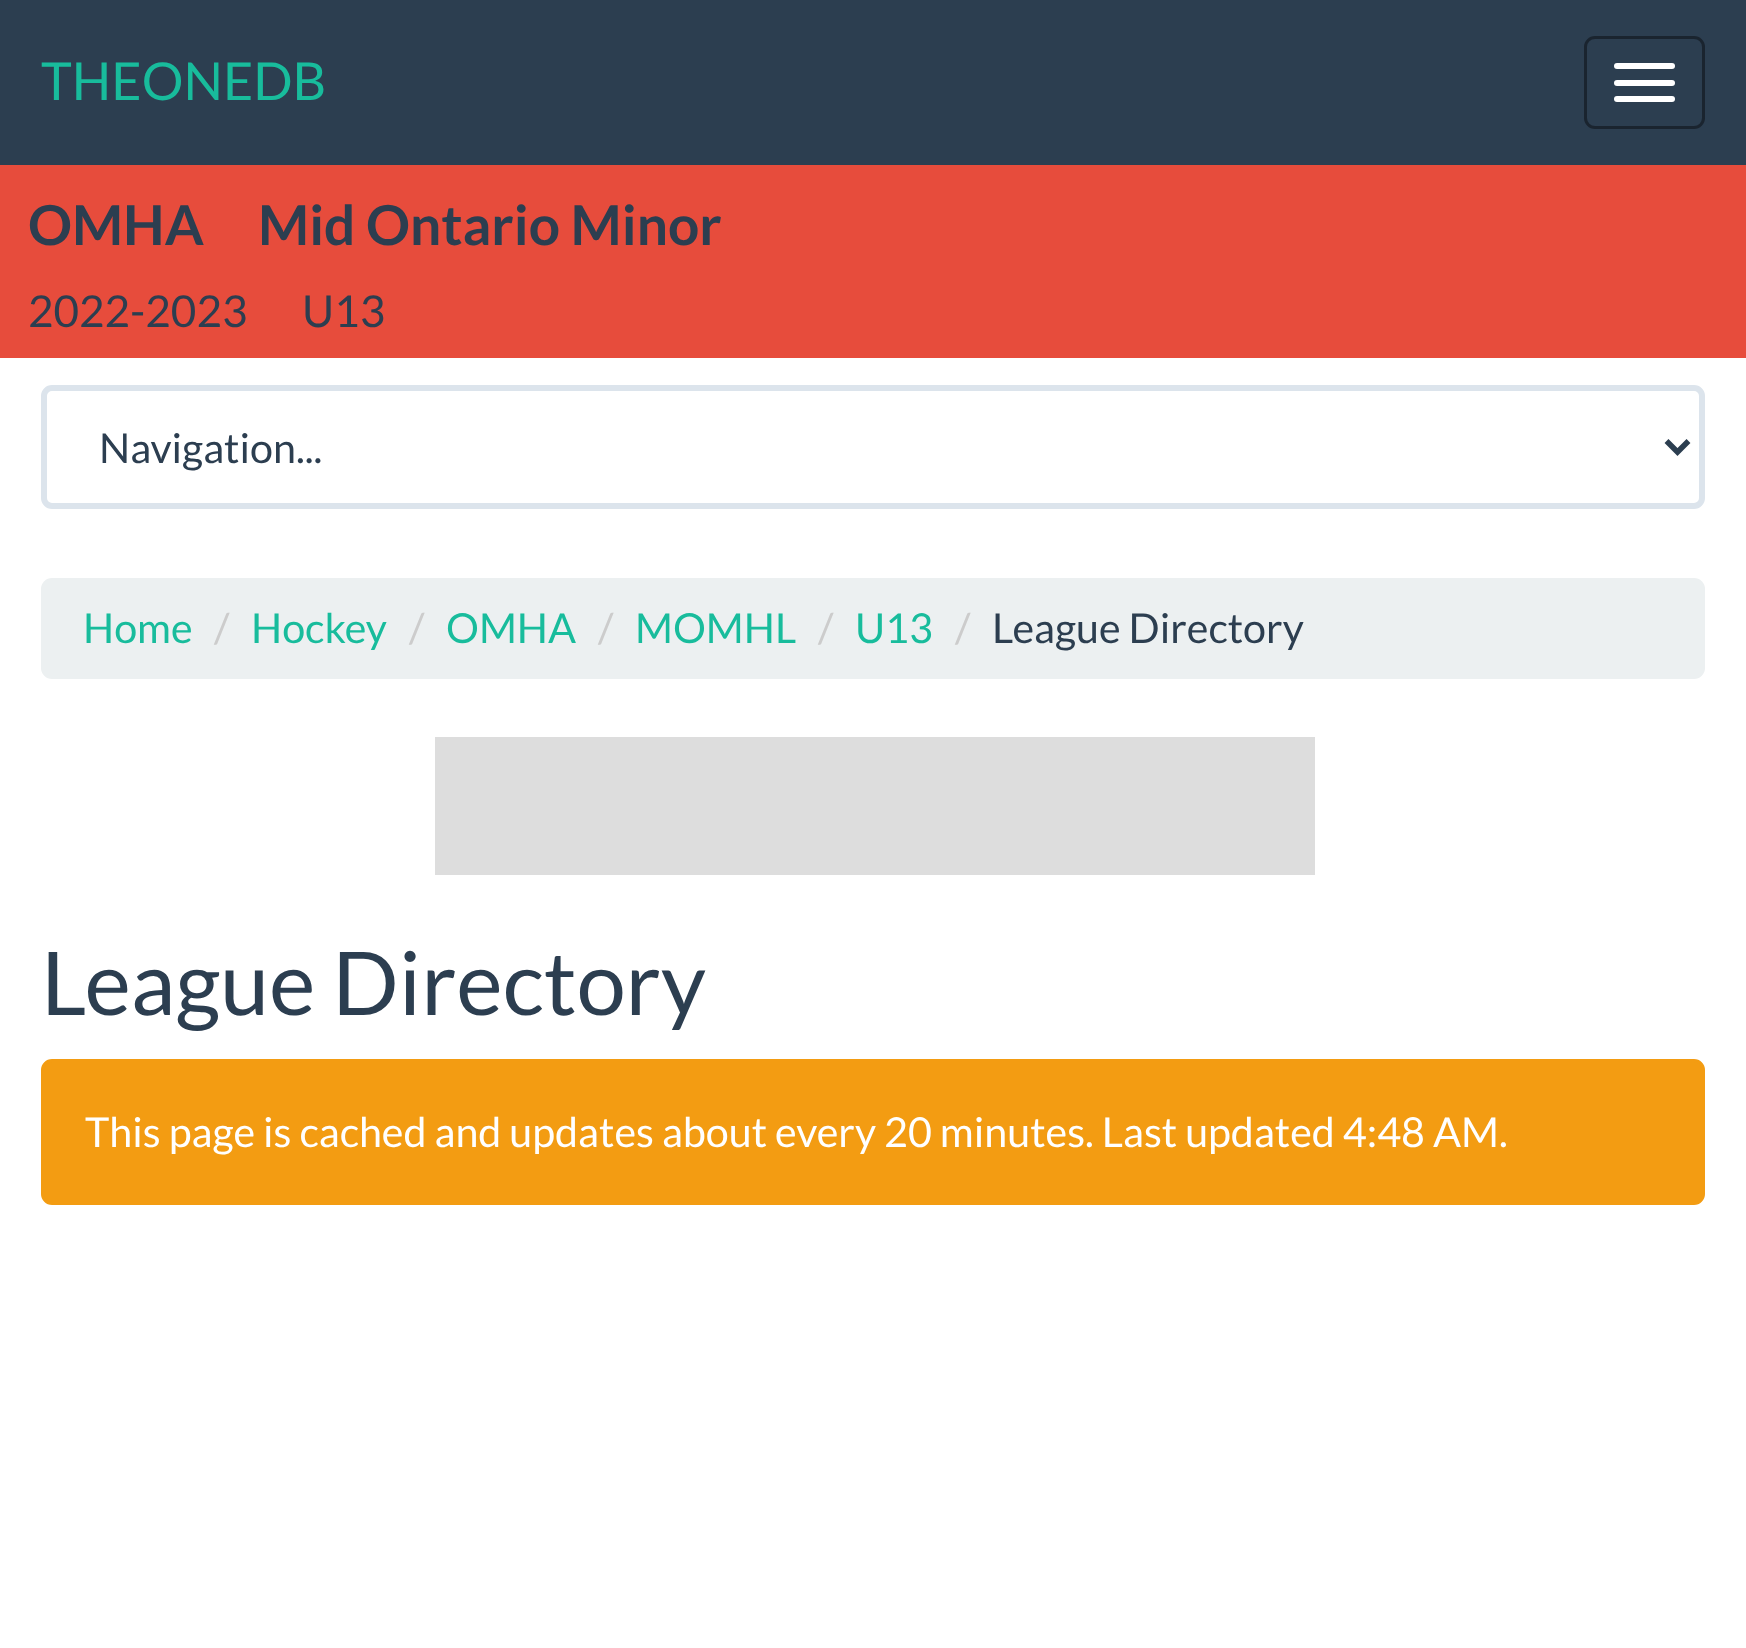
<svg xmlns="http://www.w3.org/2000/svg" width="1746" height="1648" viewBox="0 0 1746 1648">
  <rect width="100%" height="100%" fill="#ffffff"/>
  <rect x="0" y="0" width="1746" height="165" fill="#2c3e50"/>
  <text x="41" y="100" font-family="Lato" font-size="52.25" fill="#18bc9c">THEONEDB</text>
  <rect x="1585.5" y="37.5" width="118" height="90" rx="9.5" fill="none" stroke="#1a242f" stroke-width="3"/>
  <rect x="1614" y="63" width="61" height="6" rx="3" fill="#ffffff"/>
  <rect x="1614" y="80" width="61" height="6" rx="3" fill="#ffffff"/>
  <rect x="1614" y="96" width="61" height="6" rx="3" fill="#ffffff"/>
  <rect x="0" y="165" width="1746" height="193" fill="#e74c3c"/>
  <text x="28" y="245" font-family="Lato" font-size="55" font-weight="bold" fill="#2c3e50">OMHA</text>
  <text x="258" y="245" font-family="Lato" font-size="55" font-weight="bold" fill="#2c3e50">Mid Ontario Minor</text>
  <text x="28" y="327" font-family="Lato" font-size="44" fill="#2c3e50">2022-2023</text>
  <text x="302" y="327" font-family="Lato" font-size="44" fill="#2c3e50">U13</text>
  <rect x="44" y="388" width="1658" height="118" rx="8" fill="none" stroke="#dce4ec" stroke-width="6"/>
  <path d="M1666.5 441L1677.5 452L1688.5 441" fill="none" stroke="#2c3e50" stroke-width="5.5"/>
  <text x="99" y="463" font-family="Lato" font-size="41.25" fill="#2c3e50">Navigation...</text>
  <rect x="41" y="578" width="1664" height="101" rx="11" fill="#ecf0f1"/>
  <text x="83" y="643" font-family="Lato" font-size="41.25" fill="#18bc9c">Home</text>
  <text x="214" y="643" font-family="Lato" font-size="41.25" fill="#cccccc">/</text>
  <text x="251" y="643" font-family="Lato" font-size="41.25" fill="#18bc9c">Hockey</text>
  <text x="409" y="643" font-family="Lato" font-size="41.25" fill="#cccccc">/</text>
  <text x="446" y="643" font-family="Lato" font-size="41.25" fill="#18bc9c">OMHA</text>
  <text x="598" y="643" font-family="Lato" font-size="41.25" fill="#cccccc">/</text>
  <text x="635" y="643" font-family="Lato" font-size="41.25" fill="#18bc9c">MOMHL</text>
  <text x="818" y="643" font-family="Lato" font-size="41.25" fill="#cccccc">/</text>
  <text x="855" y="643" font-family="Lato" font-size="41.25" fill="#18bc9c">U13</text>
  <text x="955" y="643" font-family="Lato" font-size="41.25" fill="#cccccc">/</text>
  <text x="992" y="643" font-family="Lato" font-size="41.25" fill="#2c3e50">League Directory</text>
  <rect x="435" y="737" width="880" height="138" fill="#dddddd"/>
  <text x="41" y="1015" font-family="Lato" font-size="88" fill="#2c3e50">League Directory</text>
  <rect x="42.5" y="1060.5" width="1661" height="143" rx="9.5" fill="#f39c12" stroke="#f39c12" stroke-width="3"/>
  <text x="85" y="1147" font-family="Lato" font-size="41.25" fill="#ffffff">This page is cached and updates about every 20 minutes. Last updated 4:48 AM.</text>
</svg>
